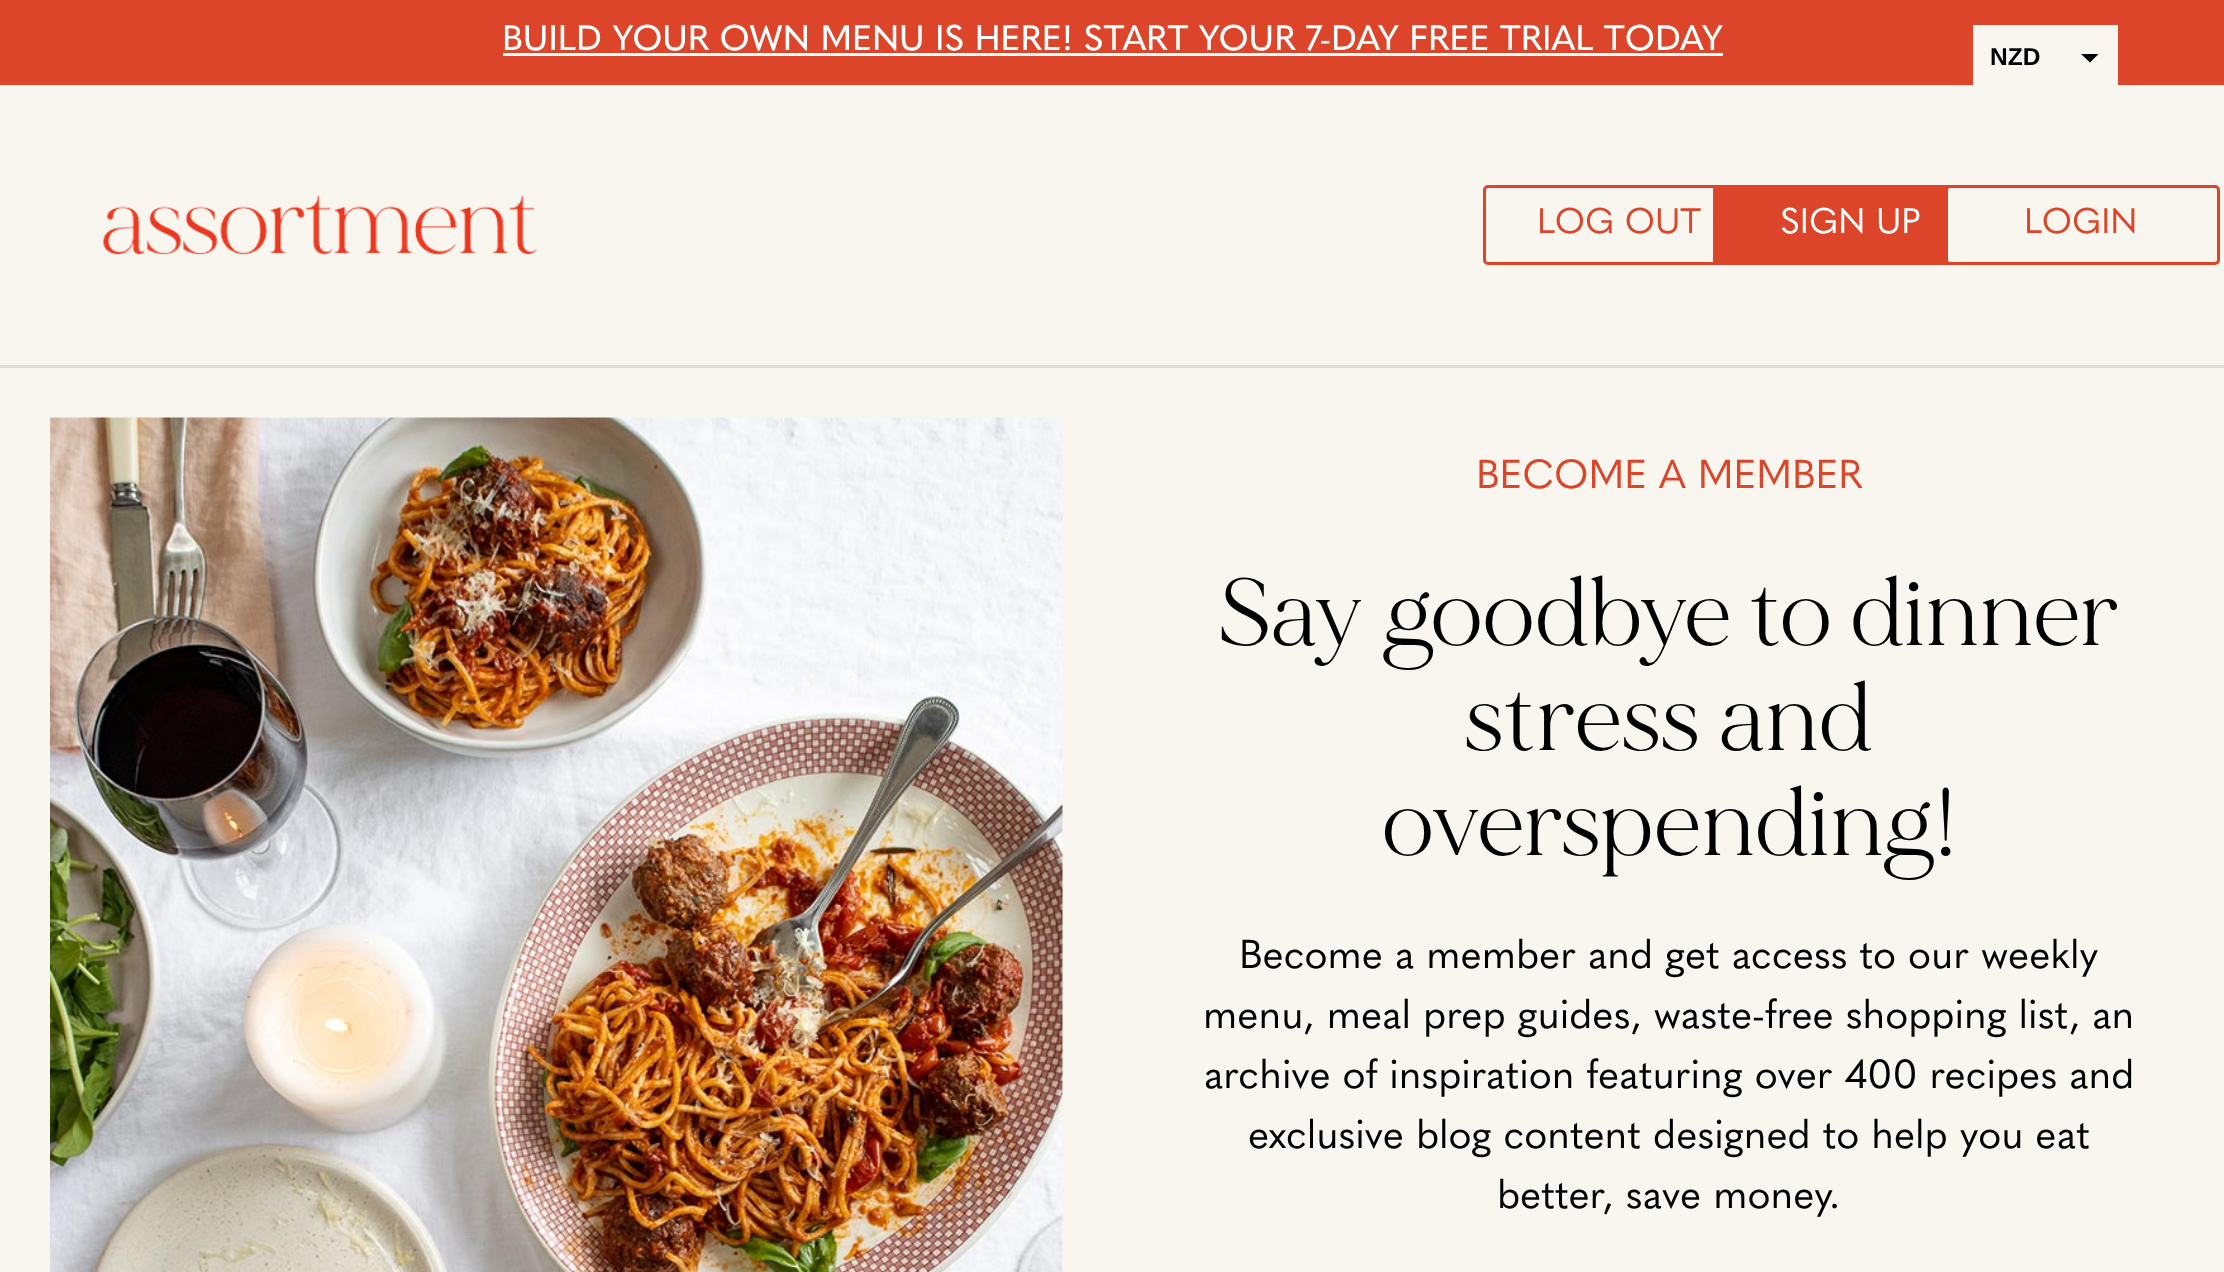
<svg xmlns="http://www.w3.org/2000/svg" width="2224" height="1272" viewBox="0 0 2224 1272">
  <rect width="100%" height="100%" fill="#dc452a"/>
  <text x="502" y="50" font-family="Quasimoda" font-size="35" font-weight="500" fill="#ffffff">BUILD YOUR OWN MENU IS HERE! START YOUR 7-DAY FREE TRIAL TODAY</text>
  <rect x="503" y="53" width="1220" height="3" fill="#ffffff"/>
  <rect x="1973" y="25" width="145" height="60" fill="#f8f6ee"/>
  <text x="1990" y="65" font-family="Liberation Sans" font-size="24.5" font-weight="bold" fill="#000000">NZD</text>
  <path d="M2081 54H2098.5L2090 62.5Z" fill="#000000"/>
  <rect x="0" y="85" width="2224" height="280" fill="#f8f6ee"/>
  <rect x="0" y="365" width="2224" height="3" fill="#dddbd4"/>
  <image x="102" y="195" width="435" height="60" href="img1.png"/>
  <rect x="1484.5" y="186.5" width="272" height="77" rx="3.5" fill="none" stroke="#dc452a" stroke-width="3"/>
  <text x="1537" y="233" font-family="Quasimoda" font-size="35" fill="#dc452a">LOG OUT</text>
  <rect x="1714.5" y="186.5" width="272" height="77" rx="3.5" fill="#dc452a" stroke="#dc452a" stroke-width="3"/>
  <text x="1780" y="233" font-family="Quasimoda" font-size="35" fill="#ffffff">SIGN UP</text>
  <rect x="1946.5" y="186.5" width="272" height="77" rx="3.5" fill="#f8f6ee" stroke="#dc452a" stroke-width="3"/>
  <text x="2024" y="233" font-family="Quasimoda" font-size="35" fill="#dc452a">LOGIN</text>
  <rect x="0" y="368" width="2224" height="904" fill="#f8f6ee"/>
  <image x="50" y="417" width="1013" height="855" href="img2.png"/>
  <text x="1476" y="488" font-family="Quasimoda" font-size="40" fill="#dc452a">BECOME A MEMBER</text>
  <text x="1218" y="645" font-family="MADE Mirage" font-size="95" fill="#000000">Say goodbye to dinner</text>
  <text x="1465" y="750" font-family="MADE Mirage" font-size="95" fill="#000000">stress and</text>
  <text x="1383" y="855" font-family="MADE Mirage" font-size="95" fill="#000000">overspending!</text>
  <text x="1239" y="968" font-family="Quasimoda" font-size="40" fill="#000000">Become a member and get access to our weekly</text>
  <text x="1203" y="1028" font-family="Quasimoda" font-size="40" fill="#000000">menu, meal prep guides, waste-free shopping list, an</text>
  <text x="1204" y="1088" font-family="Quasimoda" font-size="40" fill="#000000">archive of inspiration featuring over 400 recipes and</text>
  <text x="1248" y="1148" font-family="Quasimoda" font-size="40" fill="#000000">exclusive blog content designed to help you eat</text>
  <text x="1497" y="1208" font-family="Quasimoda" font-size="40" fill="#000000">better, save money.</text>
</svg>
